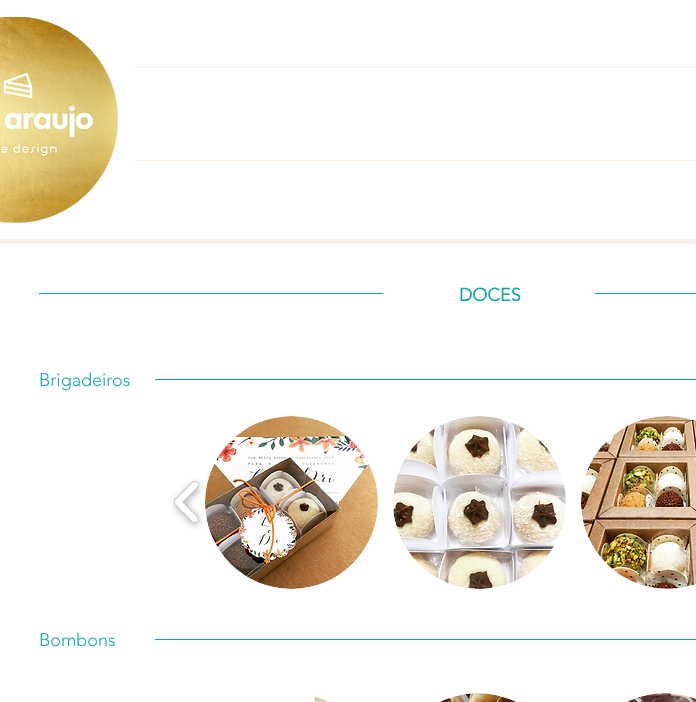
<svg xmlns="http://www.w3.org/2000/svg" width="696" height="702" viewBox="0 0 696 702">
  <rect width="100%" height="100%" fill="#f9f1ea"/>
  <rect x="0" y="0" width="696" height="239" fill="#ffffff"/>
  <image x="0" y="17" width="118" height="206" href="img1.png"/>
  <rect x="134" y="67" width="562" height="1" fill="#fcefe3"/>
  <rect x="134" y="160" width="562" height="1" fill="#fcefe3"/>
  <rect x="0" y="244" width="696" height="458" fill="#ffffff"/>
  <rect x="39" y="293" width="344" height="1" fill="#0fa8a1"/>
  <text x="459" y="301" font-family="'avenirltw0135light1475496'" font-size="18" font-weight="bold" fill="#0fa8a1">DOCES</text>
  <rect x="595" y="293" width="101" height="1" fill="#0fa8a1"/>
  <text x="39" y="386" font-family="'avenirltw0135light1475496'" font-size="18" font-weight="300" fill="#0fa8a1">Brigadeiros</text>
  <rect x="155" y="379" width="541" height="1" fill="#0fa8a1"/>
  <image x="171" y="479" width="33" height="50" href="img2.png"/>
  <image x="205" y="416" width="173" height="173" href="img3.png"/>
  <image x="393" y="416" width="173" height="173" href="img4.png"/>
  <image x="581" y="416" width="115" height="173" href="img5.png"/>
  <text x="39" y="646" font-family="'avenirltw0135light1475496'" font-size="18" font-weight="300" fill="#0fa8a1">Bombons</text>
  <rect x="155" y="639" width="541" height="1" fill="#0fa8a1"/>
  <image x="314" y="696" width="15" height="6" href="img6.png"/>
  <image x="440" y="693" width="76" height="9" href="img7.png"/>
  <image x="627" y="693" width="69" height="9" href="img8.png"/>
</svg>
